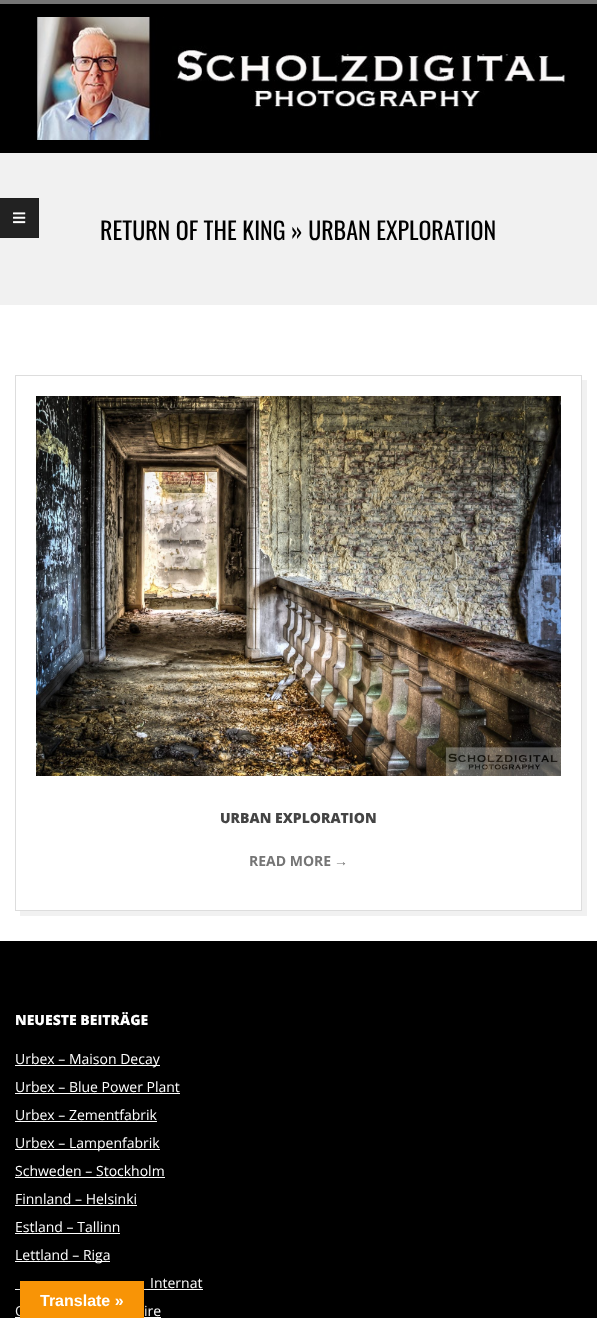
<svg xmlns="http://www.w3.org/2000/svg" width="597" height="1318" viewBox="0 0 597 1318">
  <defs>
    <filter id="blur1" x="-50%" y="-200%" width="200%" height="500%"><feGaussianBlur stdDeviation="4.5"/></filter>
  </defs>
  <rect width="100%" height="100%" fill="#ffffff"/>
  <rect x="0" y="0" width="597" height="4" fill="#757575"/>
  <rect x="0" y="4" width="597" height="149" fill="#000000"/>
  <image x="36" y="17" width="530" height="123" href="img1.png"/>
  <rect x="0" y="153" width="597" height="152" fill="#f1f1f1"/>
  <rect x="0" y="198" width="39" height="40" fill="#222222"/>
  <path d="M0 198H39L38 199H0Z" fill="#1f1f1f"/>
  <path d="M39 198V238L38 237V199Z" fill="#1f1f1f"/>
  <path d="M39 238H0V237H38Z" fill="#1f1f1f"/>
  <image x="13" y="212" width="13" height="12" href="img2.png"/>
  <text x="100" y="240" font-family="Oswald" font-size="24" fill="#000000">RETURN OF THE KING » URBAN EXPLORATION</text>
  <path d="M20 911V916H587V380H582V911Z" fill="#f1f1f1"/>
  <rect x="15.5" y="375.5" width="566" height="535" fill="none" stroke="#dddddd"/>
  <image x="36" y="396" width="525" height="380" href="img3.png"/>
  <text x="220" y="823" font-family="Open Sans" font-size="14" font-weight="800" fill="#444444">URBAN EXPLORATION</text>
  <text x="249" y="866" font-family="Open Sans" font-size="14" font-weight="bold" fill="#757575">READ MORE</text>
  <text x="334" y="866" font-family="Liberation Sans" font-size="14" font-weight="bold" fill="#757575">→</text>
  <rect x="0" y="941" width="597" height="377" fill="#000000"/>
  <text x="15" y="1025" font-family="Open Sans" font-size="14" font-weight="800" fill="#ffffff">NEUESTE BEITRÄGE</text>
  <rect x="15" y="1065" width="145" height="1" fill="#ffffff"/>
  <text x="15" y="1064" font-family="Open Sans" font-size="14" fill="#ffffff">Urbex – Maison Decay</text>
  <text x="15" y="1092" font-family="Open Sans" font-size="14" fill="#ffffff">Urbex – Blue Power Plant</text>
  <rect x="15" y="1093" width="165" height="1" fill="#ffffff"/>
  <text x="15" y="1120" font-family="Open Sans" font-size="14" fill="#ffffff">Urbex – Zementfabrik</text>
  <rect x="15" y="1121" width="142" height="1" fill="#ffffff"/>
  <rect x="15" y="1149" width="145" height="1" fill="#ffffff"/>
  <text x="15" y="1148" font-family="Open Sans" font-size="14" fill="#ffffff">Urbex – Lampenfabrik</text>
  <text x="15" y="1176" font-family="Open Sans" font-size="14" fill="#ffffff">Schweden – Stockholm</text>
  <rect x="15" y="1177" width="150" height="1" fill="#ffffff"/>
  <text x="15" y="1204" font-family="Open Sans" font-size="14" fill="#ffffff">Finnland – Helsinki</text>
  <rect x="15" y="1205" width="122" height="1" fill="#ffffff"/>
  <text x="15" y="1232" font-family="Open Sans" font-size="14" fill="#ffffff">Estland – Tallinn</text>
  <rect x="15" y="1233" width="105" height="1" fill="#ffffff"/>
  <rect x="15" y="1261" width="95" height="1" fill="#ffffff"/>
  <text x="15" y="1260" font-family="Open Sans" font-size="14" fill="#ffffff">Lettland – Riga</text>
  <text x="150" y="1288" font-family="Open Sans" font-size="14" fill="#ffffff">Internat</text>
  <rect x="15" y="1289" width="188" height="1" fill="#ffffff"/>
  <text x="15" y="1316" font-family="Open Sans" font-size="14" fill="#ffffff">C</text>
  <rect x="15" y="1317" width="146" height="1" fill="#ffffff"/>
  <text x="144" y="1316" font-family="Open Sans" font-size="14" fill="#ffffff">ire</text>
  <rect x="20" y="1281" width="124" height="37" fill="#000000" fill-opacity="0.3" filter="url(#blur1)"/>
  <rect x="20" y="1281" width="124" height="37" fill="#f89406"/>
  <text x="40" y="1306" font-family="Liberation Sans" font-size="16" font-weight="bold" fill="#ffffff">Translate »</text>
</svg>
